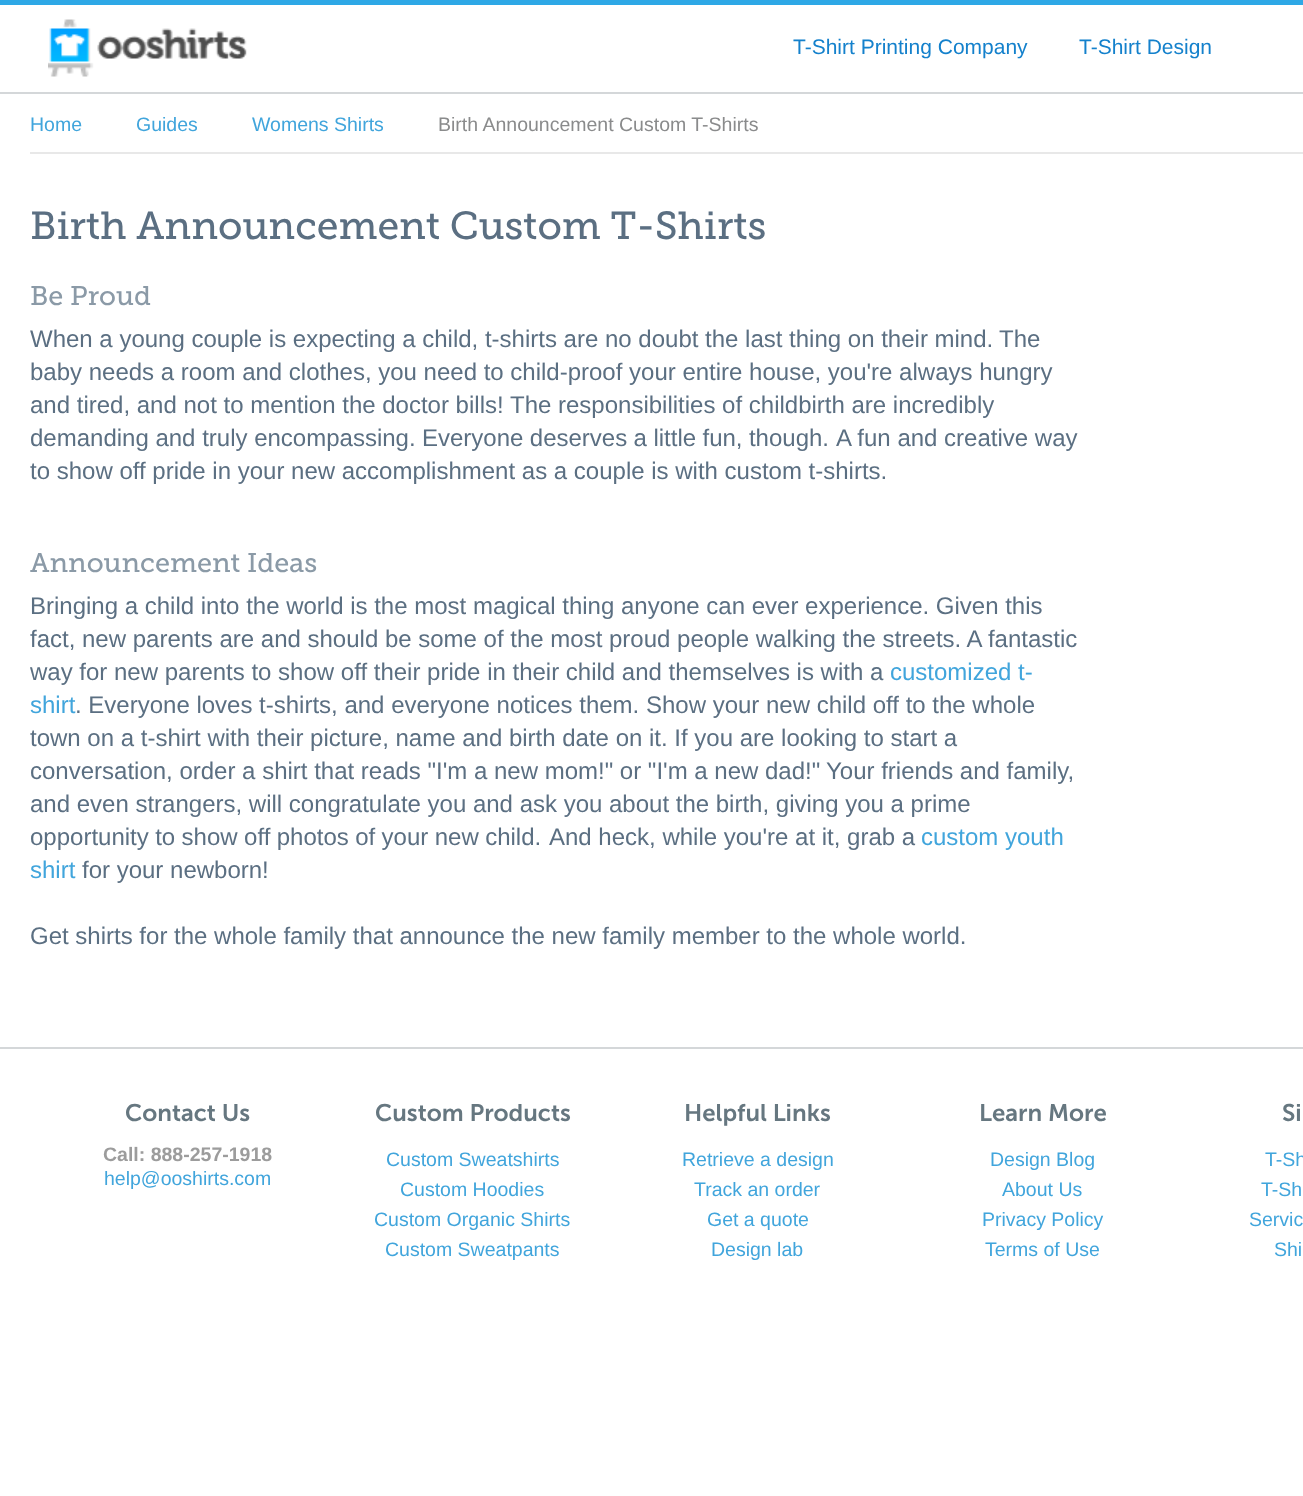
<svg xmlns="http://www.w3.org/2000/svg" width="1303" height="1496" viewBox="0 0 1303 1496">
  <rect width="100%" height="100%" fill="#ffffff"/>
  <rect x="0" y="0" width="1303" height="5" fill="#2ea8e6"/>
  <rect x="0" y="92" width="1303" height="2" fill="#d4d7d9"/>
  <image x="48" y="19" width="199" height="58" href="img1.png"/>
  <text x="793" y="54" font-family="Liberation Sans" font-size="21" fill="#1481cc">T-Shirt Printing Company</text>
  <text x="1079" y="54" font-family="Liberation Sans" font-size="21" fill="#1481cc">T-Shirt Design</text>
  <rect x="30" y="152" width="1273" height="2" fill="#e8e8e8"/>
  <text x="30" y="131" font-family="Liberation Sans" font-size="19.5" fill="#41a5dc">Home</text>
  <text x="136" y="131" font-family="Liberation Sans" font-size="19.5" fill="#41a5dc">Guides</text>
  <text x="252" y="131" font-family="Liberation Sans" font-size="19.5" fill="#41a5dc">Womens Shirts</text>
  <text x="438" y="131" font-family="Liberation Sans" font-size="19.5" fill="#8a8b8c">Birth Announcement Custom T-Shirts</text>
  <text x="30" y="239" font-family="Museo Slab" font-size="39" fill="#5b6f82">Birth Announcement Custom T-Shirts</text>
  <text x="30" y="305" font-family="Museo Slab" font-size="27" fill="#8b9aa7">Be Proud</text>
  <text x="30" y="347" font-family="Liberation Sans" font-size="24" fill="#5b6f82">When a young couple is expecting a child, t-shirts are no doubt the last thing on their mind.</text>
  <text x="999" y="347" font-family="Liberation Sans" font-size="24" fill="#5b6f82">The</text>
  <text x="30" y="380" font-family="Liberation Sans" font-size="24" fill="#5b6f82">baby needs a room and clothes, you need to child-proof your entire house, you're always hungry</text>
  <text x="30" y="413" font-family="Liberation Sans" font-size="24" fill="#5b6f82">and tired, and not to mention the doctor bills!</text>
  <text x="510" y="413" font-family="Liberation Sans" font-size="24" fill="#5b6f82">The responsibilities of childbirth are incredibly</text>
  <text x="30" y="446" font-family="Liberation Sans" font-size="24" fill="#5b6f82">demanding and truly encompassing.</text>
  <text x="422" y="446" word-spacing="-0.25" font-family="Liberation Sans" font-size="24" fill="#5b6f82">Everyone deserves a little fun, though.</text>
  <text x="836" y="446" font-family="Liberation Sans" font-size="24" fill="#5b6f82">A fun and creative way</text>
  <text x="30" y="479" font-family="Liberation Sans" font-size="24" fill="#5b6f82">to show off pride in your new accomplishment as a couple is with custom t-shirts.</text>
  <text x="30" y="572" font-family="Museo Slab" font-size="27" fill="#8b9aa7">Announcement Ideas</text>
  <text x="30" y="614" font-family="Liberation Sans" font-size="24" fill="#5b6f82">Bringing a child into the world is the most magical thing anyone can ever experience. Given this</text>
  <text x="30" y="647" font-family="Liberation Sans" font-size="24" fill="#5b6f82">fact, new parents are and should be some of the most proud people walking the streets. A fantastic</text>
  <text x="30" y="680" font-family="Liberation Sans" font-size="24" fill="#5b6f82">way for new parents to show off their pride in their child and themselves is with a</text>
  <text x="890" y="680" font-family="Liberation Sans" font-size="24" fill="#41a5dc">customized t-</text>
  <text x="30" y="713" font-family="Liberation Sans" font-size="24" fill="#41a5dc">shirt</text>
  <text x="75" y="713" font-family="Liberation Sans" font-size="24" fill="#5b6f82">. Everyone loves t-shirts, and everyone notices them. Show your new child off to the whole</text>
  <text x="30" y="746" font-family="Liberation Sans" font-size="24" fill="#5b6f82">town on a t-shirt with their picture, name and birth date on it. If you are looking to start a</text>
  <text x="30" y="779" font-family="Liberation Sans" font-size="24" fill="#5b6f82">conversation, order a shirt that reads "I'm a new mom!" or "I'm a new dad!"</text>
  <text x="826" y="779" font-family="Liberation Sans" font-size="24" fill="#5b6f82">Your friends and family,</text>
  <text x="30" y="812" font-family="Liberation Sans" font-size="24" fill="#5b6f82">and even strangers, will congratulate you and ask you about the birth, giving you a prime</text>
  <text x="30" y="845" word-spacing="-0.25" font-family="Liberation Sans" font-size="24" fill="#5b6f82">opportunity to show off photos of your new child.</text>
  <text x="549" y="845" font-family="Liberation Sans" font-size="24" fill="#5b6f82">And heck, while you're at it, grab a</text>
  <text x="921" y="845" font-family="Liberation Sans" font-size="24" fill="#41a5dc">custom youth</text>
  <text x="30" y="878" font-family="Liberation Sans" font-size="24" fill="#41a5dc">shirt</text>
  <text x="82" y="878" font-family="Liberation Sans" font-size="24" fill="#5b6f82">for your newborn!</text>
  <text x="30" y="944" font-family="Liberation Sans" font-size="24" fill="#5b6f82">Get shirts for the whole family that announce the new family member to the whole world.</text>
  <rect x="0" y="1047" width="1303" height="2" fill="#d4d7d9"/>
  <text x="125" y="1121" font-family="Museo Sans" font-size="24" font-weight="600" fill="#667780">Contact Us</text>
  <text x="103" y="1161" font-family="Liberation Sans" font-size="19.5" font-weight="bold" fill="#9c9c9c">Call: 888-257-1918</text>
  <text x="104" y="1185" font-family="Liberation Sans" font-size="19.5" fill="#41a5dc">help@ooshirts.com</text>
  <text x="375" y="1121" font-family="Museo Sans" font-size="24" font-weight="600" fill="#667780">Custom Products</text>
  <text x="386" y="1166" font-family="Liberation Sans" font-size="19.5" fill="#41a5dc">Custom Sweatshirts</text>
  <text x="400" y="1196" font-family="Liberation Sans" font-size="19.5" fill="#41a5dc">Custom Hoodies</text>
  <text x="374" y="1226" font-family="Liberation Sans" font-size="19.5" fill="#41a5dc">Custom Organic Shirts</text>
  <text x="385" y="1256" font-family="Liberation Sans" font-size="19.5" fill="#41a5dc">Custom Sweatpants</text>
  <text x="684" y="1121" font-family="Museo Sans" font-size="24" font-weight="600" fill="#667780">Helpful Links</text>
  <text x="682" y="1166" font-family="Liberation Sans" font-size="19.5" fill="#41a5dc">Retrieve a design</text>
  <text x="694" y="1196" font-family="Liberation Sans" font-size="19.5" fill="#41a5dc">Track an order</text>
  <text x="707" y="1226" font-family="Liberation Sans" font-size="19.5" fill="#41a5dc">Get a quote</text>
  <text x="711" y="1256" font-family="Liberation Sans" font-size="19.5" fill="#41a5dc">Design lab</text>
  <text x="979" y="1121" font-family="Museo Sans" font-size="24" font-weight="600" fill="#667780">Learn More</text>
  <text x="990" y="1166" font-family="Liberation Sans" font-size="19.5" fill="#41a5dc">Design Blog</text>
  <text x="1002" y="1196" font-family="Liberation Sans" font-size="19.5" fill="#41a5dc">About Us</text>
  <text x="982" y="1226" font-family="Liberation Sans" font-size="19.5" fill="#41a5dc">Privacy Policy</text>
  <text x="985" y="1256" font-family="Liberation Sans" font-size="19.5" fill="#41a5dc">Terms of Use</text>
  <text x="1282" y="1121" font-family="Museo Sans" font-size="24" font-weight="600" fill="#667780">Si</text>
  <text x="1265" y="1166" font-family="Liberation Sans" font-size="19.5" fill="#41a5dc">T-Sh</text>
  <text x="1261" y="1196" font-family="Liberation Sans" font-size="19.5" fill="#41a5dc">T-Sh</text>
  <text x="1249" y="1226" font-family="Liberation Sans" font-size="19.5" fill="#41a5dc">Servic</text>
  <text x="1274" y="1256" font-family="Liberation Sans" font-size="19.5" fill="#41a5dc">Shi</text>
</svg>
